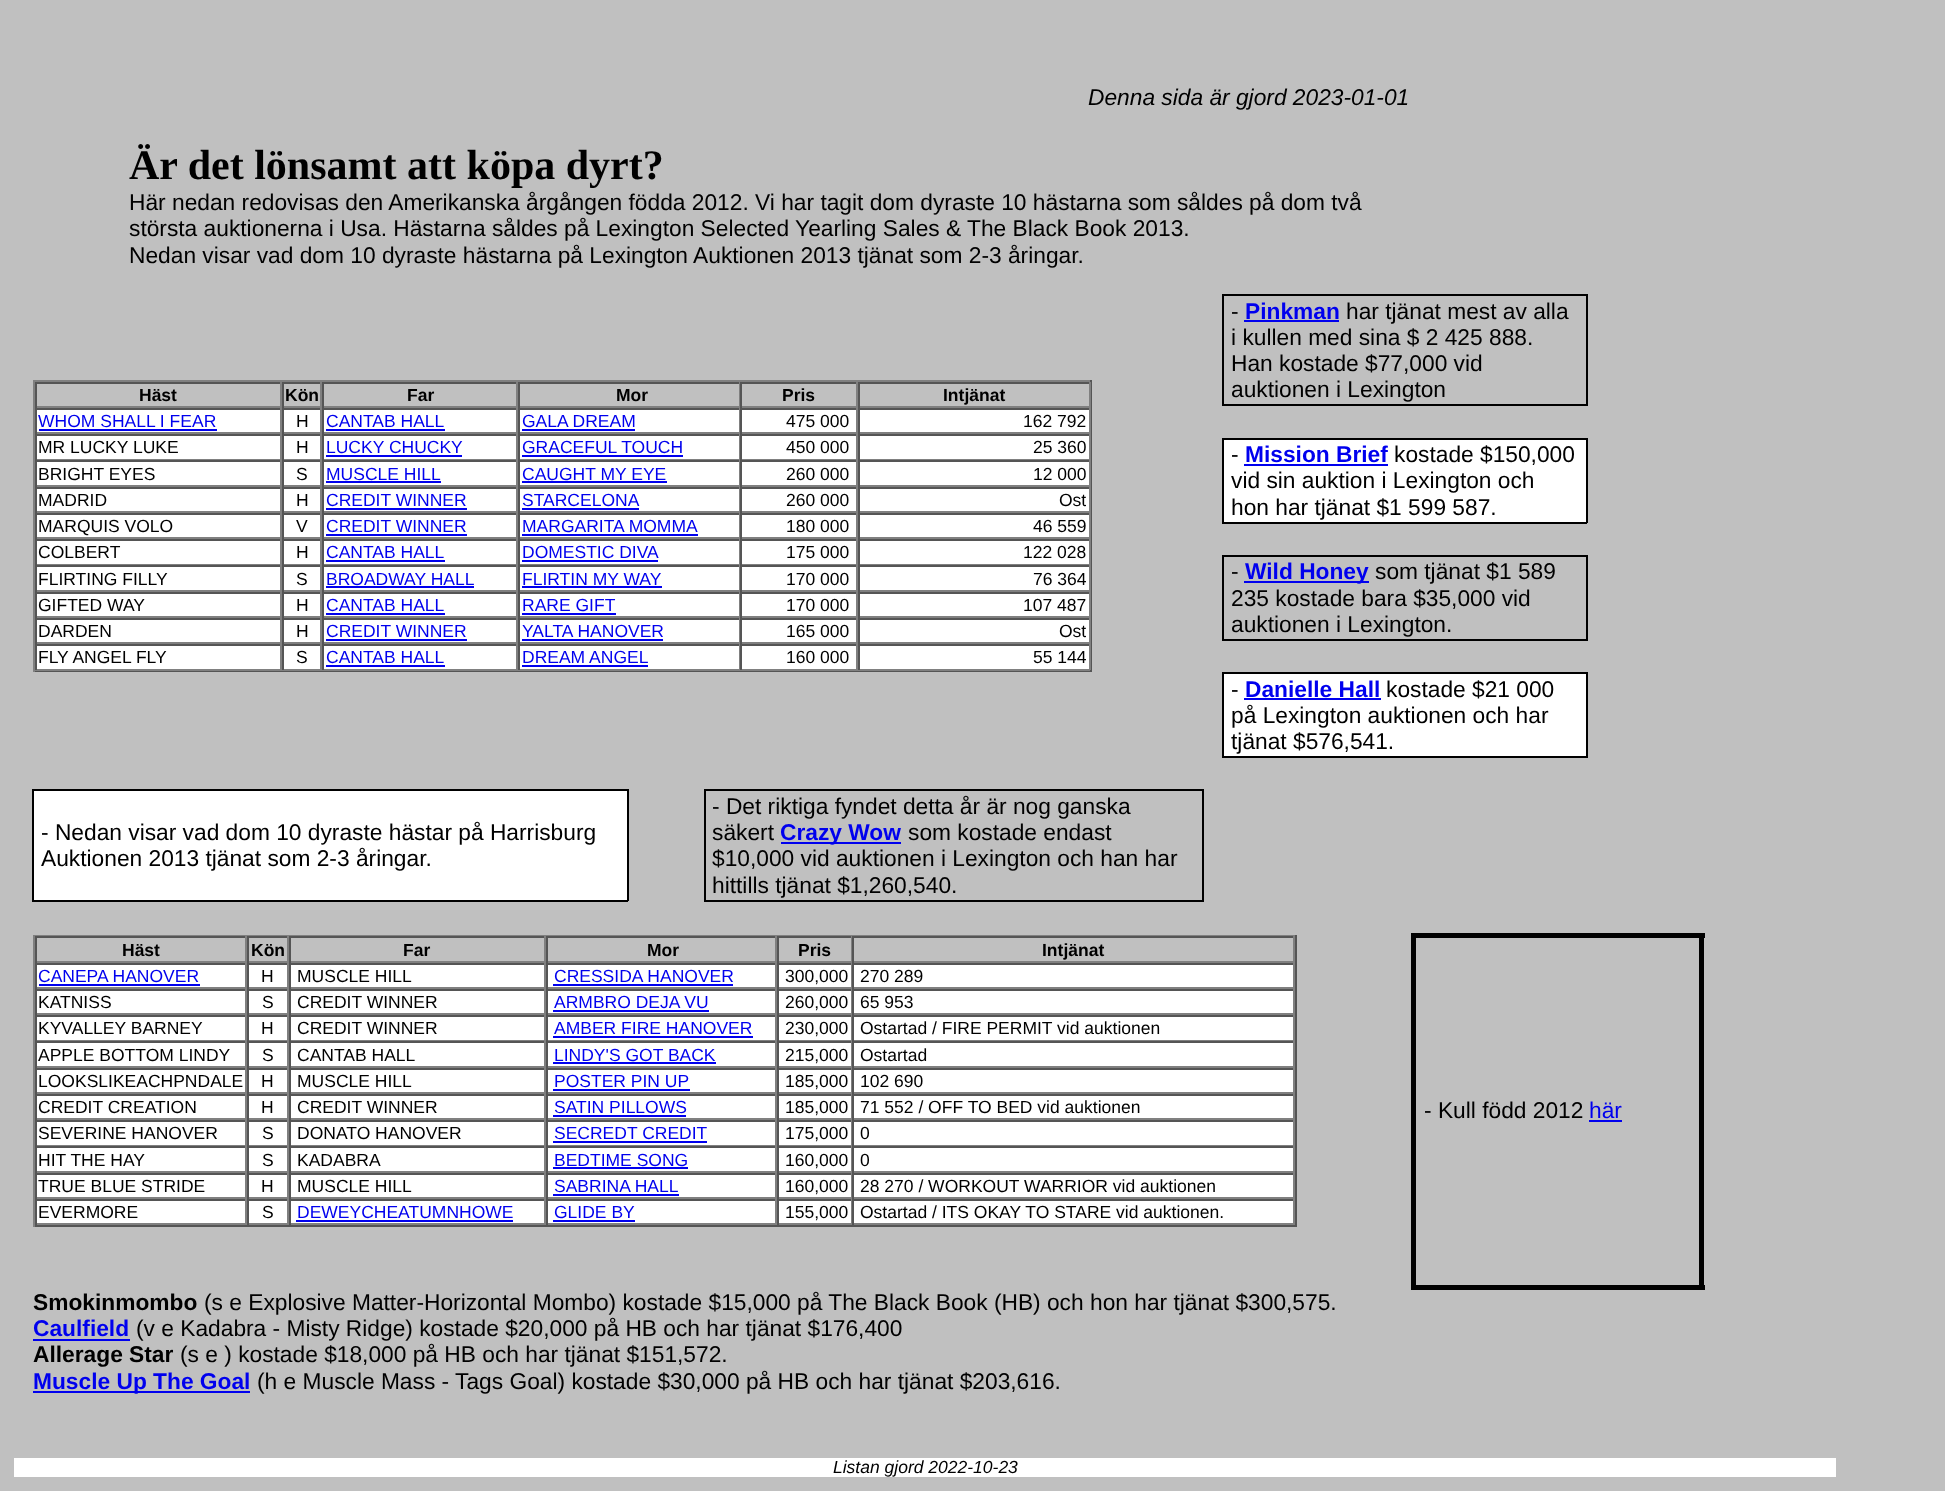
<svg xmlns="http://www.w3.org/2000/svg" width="1945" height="1491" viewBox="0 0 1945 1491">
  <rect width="100%" height="100%" fill="#c0c0c0"/>
  <text x="1088" y="105" font-family="Liberation Sans" font-size="22.75" font-style="italic" fill="#000000">Denna sida är gjord 2023-01-01</text>
  <text x="129" y="179" font-family="Liberation Serif" font-size="42" font-weight="bold" fill="#000000">Är det lönsamt att köpa dyrt?</text>
  <text x="129" y="210" font-family="Liberation Sans" font-size="22.75" fill="#000000">Här nedan redovisas den Amerikanska årgången födda 2012. Vi har tagit dom dyraste 10 hästarna som såldes på dom två</text>
  <text x="129" y="236" font-family="Liberation Sans" font-size="22.75" fill="#000000">största auktionerna i Usa. Hästarna såldes på Lexington Selected Yearling Sales &amp; The Black Book 2013.</text>
  <text x="129" y="263" font-family="Liberation Sans" font-size="22.75" fill="#000000">Nedan visar vad dom 10 dyraste hästarna på Lexington Auktionen 2013 tjänat som 2-3 åringar.</text>
  <rect x="37" y="410" width="1052" height="259" fill="#ffffff"/>
  <rect x="33" y="380" width="1059" height="2" fill="#808080"/>
  <rect x="1090" y="380" width="2" height="292" fill="#555555"/>
  <rect x="33" y="670" width="1059" height="2" fill="#555555"/>
  <rect x="33" y="380" width="2" height="292" fill="#808080"/>
  <rect x="35" y="382" width="1055" height="2" fill="#555555"/>
  <rect x="280" y="382" width="2" height="26" fill="#808080"/>
  <rect x="35" y="406" width="247" height="2" fill="#808080"/>
  <rect x="35" y="382" width="2" height="26" fill="#555555"/>
  <text x="139" y="401" font-family="Liberation Sans" font-size="17.5" font-weight="bold" fill="#000000">Häst</text>
  <rect x="320" y="382" width="2" height="26" fill="#808080"/>
  <rect x="282" y="406" width="40" height="2" fill="#808080"/>
  <rect x="282" y="382" width="2" height="26" fill="#555555"/>
  <text x="285" y="401" font-family="Liberation Sans" font-size="17.5" font-weight="bold" fill="#000000">Kön</text>
  <rect x="516" y="382" width="2" height="26" fill="#808080"/>
  <rect x="322" y="406" width="196" height="2" fill="#808080"/>
  <rect x="322" y="382" width="2" height="26" fill="#555555"/>
  <text x="407" y="401" font-family="Liberation Sans" font-size="17.5" font-weight="bold" fill="#000000">Far</text>
  <rect x="739" y="382" width="1" height="26" fill="#808080"/>
  <rect x="518" y="406" width="222" height="2" fill="#808080"/>
  <rect x="518" y="382" width="2" height="26" fill="#555555"/>
  <text x="616" y="401" font-family="Liberation Sans" font-size="17.5" font-weight="bold" fill="#000000">Mor</text>
  <rect x="856" y="382" width="2" height="26" fill="#808080"/>
  <rect x="740" y="406" width="118" height="2" fill="#808080"/>
  <rect x="740" y="382" width="2" height="26" fill="#555555"/>
  <text x="782" y="401" font-family="Liberation Sans" font-size="17.5" font-weight="bold" fill="#000000">Pris</text>
  <rect x="1089" y="382" width="2" height="26" fill="#808080"/>
  <rect x="858" y="406" width="232" height="2" fill="#808080"/>
  <rect x="858" y="382" width="2" height="26" fill="#555555"/>
  <text x="943" y="401" font-family="Liberation Sans" font-size="17.5" font-weight="bold" fill="#000000">Intjänat</text>
  <rect x="35" y="408" width="1055" height="2" fill="#555555"/>
  <rect x="280" y="408" width="2" height="26" fill="#808080"/>
  <rect x="35" y="432" width="247" height="2" fill="#808080"/>
  <rect x="35" y="408" width="2" height="26" fill="#555555"/>
  <text x="38" y="427" font-family="Liberation Sans" font-size="17.5" fill="#0000ee">WHOM SHALL I FEAR</text>
  <rect x="39" y="429" width="178" height="2" fill="#0000ee"/>
  <rect x="320" y="408" width="2" height="26" fill="#808080"/>
  <rect x="282" y="432" width="40" height="2" fill="#808080"/>
  <rect x="282" y="408" width="2" height="26" fill="#555555"/>
  <text x="296" y="427" font-family="Liberation Sans" font-size="17.5" fill="#000000">H</text>
  <rect x="516" y="408" width="2" height="26" fill="#808080"/>
  <rect x="322" y="432" width="196" height="2" fill="#808080"/>
  <rect x="322" y="408" width="2" height="26" fill="#555555"/>
  <text x="326" y="427" font-family="Liberation Sans" font-size="17.5" fill="#0000ee">CANTAB HALL</text>
  <rect x="326" y="429" width="119" height="2" fill="#0000ee"/>
  <rect x="739" y="408" width="1" height="26" fill="#808080"/>
  <rect x="518" y="432" width="222" height="2" fill="#808080"/>
  <rect x="518" y="408" width="2" height="26" fill="#555555"/>
  <text x="522" y="427" font-family="Liberation Sans" font-size="17.5" fill="#0000ee">GALA DREAM</text>
  <rect x="522" y="429" width="113" height="2" fill="#0000ee"/>
  <rect x="856" y="408" width="2" height="26" fill="#808080"/>
  <rect x="740" y="432" width="118" height="2" fill="#808080"/>
  <rect x="740" y="408" width="2" height="26" fill="#555555"/>
  <text x="786" y="427" font-family="Liberation Sans" font-size="17.5" fill="#000000">475 000</text>
  <rect x="1089" y="408" width="2" height="26" fill="#808080"/>
  <rect x="858" y="432" width="232" height="2" fill="#808080"/>
  <rect x="858" y="408" width="2" height="26" fill="#555555"/>
  <text x="1023" y="427" font-family="Liberation Sans" font-size="17.5" fill="#000000">162 792</text>
  <rect x="35" y="434" width="1055" height="2" fill="#555555"/>
  <rect x="280" y="434" width="2" height="26" fill="#808080"/>
  <rect x="35" y="459" width="247" height="1" fill="#808080"/>
  <rect x="35" y="434" width="2" height="26" fill="#555555"/>
  <text x="38" y="453" font-family="Liberation Sans" font-size="17.5" fill="#000000">MR LUCKY LUKE</text>
  <rect x="320" y="434" width="2" height="26" fill="#808080"/>
  <rect x="282" y="459" width="40" height="1" fill="#808080"/>
  <rect x="282" y="434" width="2" height="26" fill="#555555"/>
  <text x="296" y="453" font-family="Liberation Sans" font-size="17.5" fill="#000000">H</text>
  <rect x="516" y="434" width="2" height="26" fill="#808080"/>
  <rect x="322" y="459" width="196" height="1" fill="#808080"/>
  <rect x="322" y="434" width="2" height="26" fill="#555555"/>
  <text x="326" y="453" font-family="Liberation Sans" font-size="17.5" fill="#0000ee">LUCKY CHUCKY</text>
  <rect x="326" y="455" width="136" height="2" fill="#0000ee"/>
  <rect x="739" y="434" width="1" height="26" fill="#808080"/>
  <rect x="518" y="459" width="222" height="1" fill="#808080"/>
  <rect x="518" y="434" width="2" height="26" fill="#555555"/>
  <text x="522" y="453" font-family="Liberation Sans" font-size="17.5" fill="#0000ee">GRACEFUL TOUCH</text>
  <rect x="522" y="455" width="161" height="2" fill="#0000ee"/>
  <rect x="856" y="434" width="2" height="26" fill="#808080"/>
  <rect x="740" y="459" width="118" height="1" fill="#808080"/>
  <rect x="740" y="434" width="2" height="26" fill="#555555"/>
  <text x="786" y="453" font-family="Liberation Sans" font-size="17.5" fill="#000000">450 000</text>
  <rect x="1089" y="434" width="2" height="26" fill="#808080"/>
  <rect x="858" y="459" width="232" height="1" fill="#808080"/>
  <rect x="858" y="434" width="2" height="26" fill="#555555"/>
  <text x="1033" y="453" font-family="Liberation Sans" font-size="17.5" fill="#000000">25 360</text>
  <rect x="35" y="460" width="1055" height="2" fill="#555555"/>
  <rect x="280" y="460" width="2" height="27" fill="#808080"/>
  <rect x="35" y="485" width="247" height="2" fill="#808080"/>
  <rect x="35" y="460" width="2" height="27" fill="#555555"/>
  <text x="38" y="480" font-family="Liberation Sans" font-size="17.5" fill="#000000">BRIGHT EYES</text>
  <rect x="320" y="460" width="2" height="27" fill="#808080"/>
  <rect x="282" y="485" width="40" height="2" fill="#808080"/>
  <rect x="282" y="460" width="2" height="27" fill="#555555"/>
  <text x="296" y="480" font-family="Liberation Sans" font-size="17.5" fill="#000000">S</text>
  <rect x="516" y="460" width="2" height="27" fill="#808080"/>
  <rect x="322" y="485" width="196" height="2" fill="#808080"/>
  <rect x="322" y="460" width="2" height="27" fill="#555555"/>
  <text x="326" y="480" font-family="Liberation Sans" font-size="17.5" fill="#0000ee">MUSCLE HILL</text>
  <rect x="326" y="481" width="115" height="2" fill="#0000ee"/>
  <rect x="739" y="460" width="1" height="27" fill="#808080"/>
  <rect x="518" y="485" width="222" height="2" fill="#808080"/>
  <rect x="518" y="460" width="2" height="27" fill="#555555"/>
  <text x="522" y="480" font-family="Liberation Sans" font-size="17.5" fill="#0000ee">CAUGHT MY EYE</text>
  <rect x="522" y="481" width="145" height="2" fill="#0000ee"/>
  <rect x="856" y="460" width="2" height="27" fill="#808080"/>
  <rect x="740" y="485" width="118" height="2" fill="#808080"/>
  <rect x="740" y="460" width="2" height="27" fill="#555555"/>
  <text x="786" y="480" font-family="Liberation Sans" font-size="17.5" fill="#000000">260 000</text>
  <rect x="1089" y="460" width="2" height="27" fill="#808080"/>
  <rect x="858" y="485" width="232" height="2" fill="#808080"/>
  <rect x="858" y="460" width="2" height="27" fill="#555555"/>
  <text x="1033" y="480" font-family="Liberation Sans" font-size="17.5" fill="#000000">12 000</text>
  <rect x="35" y="487" width="1055" height="2" fill="#555555"/>
  <rect x="280" y="487" width="2" height="26" fill="#808080"/>
  <rect x="35" y="511" width="247" height="2" fill="#808080"/>
  <rect x="35" y="487" width="2" height="26" fill="#555555"/>
  <text x="38" y="506" font-family="Liberation Sans" font-size="17.5" fill="#000000">MADRID</text>
  <rect x="320" y="487" width="2" height="26" fill="#808080"/>
  <rect x="282" y="511" width="40" height="2" fill="#808080"/>
  <rect x="282" y="487" width="2" height="26" fill="#555555"/>
  <text x="296" y="506" font-family="Liberation Sans" font-size="17.5" fill="#000000">H</text>
  <rect x="516" y="487" width="2" height="26" fill="#808080"/>
  <rect x="322" y="511" width="196" height="2" fill="#808080"/>
  <rect x="322" y="487" width="2" height="26" fill="#555555"/>
  <text x="326" y="506" font-family="Liberation Sans" font-size="17.5" fill="#0000ee">CREDIT WINNER</text>
  <rect x="326" y="508" width="141" height="2" fill="#0000ee"/>
  <rect x="739" y="487" width="1" height="26" fill="#808080"/>
  <rect x="518" y="511" width="222" height="2" fill="#808080"/>
  <rect x="518" y="487" width="2" height="26" fill="#555555"/>
  <text x="522" y="506" font-family="Liberation Sans" font-size="17.5" fill="#0000ee">STARCELONA</text>
  <rect x="522" y="508" width="117" height="2" fill="#0000ee"/>
  <rect x="856" y="487" width="2" height="26" fill="#808080"/>
  <rect x="740" y="511" width="118" height="2" fill="#808080"/>
  <rect x="740" y="487" width="2" height="26" fill="#555555"/>
  <text x="786" y="506" font-family="Liberation Sans" font-size="17.5" fill="#000000">260 000</text>
  <rect x="1089" y="487" width="2" height="26" fill="#808080"/>
  <rect x="858" y="511" width="232" height="2" fill="#808080"/>
  <rect x="858" y="487" width="2" height="26" fill="#555555"/>
  <text x="1059" y="506" font-family="Liberation Sans" font-size="17.5" fill="#000000">Ost</text>
  <rect x="35" y="513" width="1055" height="2" fill="#555555"/>
  <rect x="280" y="513" width="2" height="26" fill="#808080"/>
  <rect x="35" y="537" width="247" height="2" fill="#808080"/>
  <rect x="35" y="513" width="2" height="26" fill="#555555"/>
  <text x="38" y="532" font-family="Liberation Sans" font-size="17.5" fill="#000000">MARQUIS VOLO</text>
  <rect x="320" y="513" width="2" height="26" fill="#808080"/>
  <rect x="282" y="537" width="40" height="2" fill="#808080"/>
  <rect x="282" y="513" width="2" height="26" fill="#555555"/>
  <text x="296" y="532" font-family="Liberation Sans" font-size="17.5" fill="#000000">V</text>
  <rect x="516" y="513" width="2" height="26" fill="#808080"/>
  <rect x="322" y="537" width="196" height="2" fill="#808080"/>
  <rect x="322" y="513" width="2" height="26" fill="#555555"/>
  <text x="326" y="532" font-family="Liberation Sans" font-size="17.5" fill="#0000ee">CREDIT WINNER</text>
  <rect x="326" y="534" width="141" height="2" fill="#0000ee"/>
  <rect x="739" y="513" width="1" height="26" fill="#808080"/>
  <rect x="518" y="537" width="222" height="2" fill="#808080"/>
  <rect x="518" y="513" width="2" height="26" fill="#555555"/>
  <text x="522" y="532" font-family="Liberation Sans" font-size="17.5" fill="#0000ee">MARGARITA MOMMA</text>
  <rect x="522" y="534" width="176" height="2" fill="#0000ee"/>
  <rect x="856" y="513" width="2" height="26" fill="#808080"/>
  <rect x="740" y="537" width="118" height="2" fill="#808080"/>
  <rect x="740" y="513" width="2" height="26" fill="#555555"/>
  <text x="786" y="532" font-family="Liberation Sans" font-size="17.5" fill="#000000">180 000</text>
  <rect x="1089" y="513" width="2" height="26" fill="#808080"/>
  <rect x="858" y="537" width="232" height="2" fill="#808080"/>
  <rect x="858" y="513" width="2" height="26" fill="#555555"/>
  <text x="1033" y="532" font-family="Liberation Sans" font-size="17.5" fill="#000000">46 559</text>
  <rect x="35" y="539" width="1055" height="2" fill="#555555"/>
  <rect x="280" y="539" width="2" height="26" fill="#808080"/>
  <rect x="35" y="564" width="247" height="1" fill="#808080"/>
  <rect x="35" y="539" width="2" height="26" fill="#555555"/>
  <text x="38" y="558" font-family="Liberation Sans" font-size="17.5" fill="#000000">COLBERT</text>
  <rect x="320" y="539" width="2" height="26" fill="#808080"/>
  <rect x="282" y="564" width="40" height="1" fill="#808080"/>
  <rect x="282" y="539" width="2" height="26" fill="#555555"/>
  <text x="296" y="558" font-family="Liberation Sans" font-size="17.5" fill="#000000">H</text>
  <rect x="516" y="539" width="2" height="26" fill="#808080"/>
  <rect x="322" y="564" width="196" height="1" fill="#808080"/>
  <rect x="322" y="539" width="2" height="26" fill="#555555"/>
  <text x="326" y="558" font-family="Liberation Sans" font-size="17.5" fill="#0000ee">CANTAB HALL</text>
  <rect x="326" y="560" width="119" height="2" fill="#0000ee"/>
  <rect x="739" y="539" width="1" height="26" fill="#808080"/>
  <rect x="518" y="564" width="222" height="1" fill="#808080"/>
  <rect x="518" y="539" width="2" height="26" fill="#555555"/>
  <text x="522" y="558" font-family="Liberation Sans" font-size="17.5" fill="#0000ee">DOMESTIC DIVA</text>
  <rect x="522" y="560" width="136" height="2" fill="#0000ee"/>
  <rect x="856" y="539" width="2" height="26" fill="#808080"/>
  <rect x="740" y="564" width="118" height="1" fill="#808080"/>
  <rect x="740" y="539" width="2" height="26" fill="#555555"/>
  <text x="786" y="558" font-family="Liberation Sans" font-size="17.5" fill="#000000">175 000</text>
  <rect x="1089" y="539" width="2" height="26" fill="#808080"/>
  <rect x="858" y="564" width="232" height="1" fill="#808080"/>
  <rect x="858" y="539" width="2" height="26" fill="#555555"/>
  <text x="1023" y="558" font-family="Liberation Sans" font-size="17.5" fill="#000000">122 028</text>
  <rect x="35" y="565" width="1055" height="2" fill="#555555"/>
  <rect x="280" y="565" width="2" height="27" fill="#808080"/>
  <rect x="35" y="590" width="247" height="2" fill="#808080"/>
  <rect x="35" y="565" width="2" height="27" fill="#555555"/>
  <text x="38" y="585" font-family="Liberation Sans" font-size="17.5" fill="#000000">FLIRTING FILLY</text>
  <rect x="320" y="565" width="2" height="27" fill="#808080"/>
  <rect x="282" y="590" width="40" height="2" fill="#808080"/>
  <rect x="282" y="565" width="2" height="27" fill="#555555"/>
  <text x="296" y="585" font-family="Liberation Sans" font-size="17.5" fill="#000000">S</text>
  <rect x="516" y="565" width="2" height="27" fill="#808080"/>
  <rect x="322" y="590" width="196" height="2" fill="#808080"/>
  <rect x="322" y="565" width="2" height="27" fill="#555555"/>
  <text x="326" y="585" font-family="Liberation Sans" font-size="17.5" fill="#0000ee">BROADWAY HALL</text>
  <rect x="326" y="586" width="148" height="2" fill="#0000ee"/>
  <rect x="739" y="565" width="1" height="27" fill="#808080"/>
  <rect x="518" y="590" width="222" height="2" fill="#808080"/>
  <rect x="518" y="565" width="2" height="27" fill="#555555"/>
  <text x="522" y="585" font-family="Liberation Sans" font-size="17.5" fill="#0000ee">FLIRTIN MY WAY</text>
  <rect x="522" y="586" width="140" height="2" fill="#0000ee"/>
  <rect x="856" y="565" width="2" height="27" fill="#808080"/>
  <rect x="740" y="590" width="118" height="2" fill="#808080"/>
  <rect x="740" y="565" width="2" height="27" fill="#555555"/>
  <text x="786" y="585" font-family="Liberation Sans" font-size="17.5" fill="#000000">170 000</text>
  <rect x="1089" y="565" width="2" height="27" fill="#808080"/>
  <rect x="858" y="590" width="232" height="2" fill="#808080"/>
  <rect x="858" y="565" width="2" height="27" fill="#555555"/>
  <text x="1033" y="585" font-family="Liberation Sans" font-size="17.5" fill="#000000">76 364</text>
  <rect x="35" y="592" width="1055" height="2" fill="#555555"/>
  <rect x="280" y="592" width="2" height="26" fill="#808080"/>
  <rect x="35" y="616" width="247" height="2" fill="#808080"/>
  <rect x="35" y="592" width="2" height="26" fill="#555555"/>
  <text x="38" y="611" font-family="Liberation Sans" font-size="17.5" fill="#000000">GIFTED WAY</text>
  <rect x="320" y="592" width="2" height="26" fill="#808080"/>
  <rect x="282" y="616" width="40" height="2" fill="#808080"/>
  <rect x="282" y="592" width="2" height="26" fill="#555555"/>
  <text x="296" y="611" font-family="Liberation Sans" font-size="17.5" fill="#000000">H</text>
  <rect x="516" y="592" width="2" height="26" fill="#808080"/>
  <rect x="322" y="616" width="196" height="2" fill="#808080"/>
  <rect x="322" y="592" width="2" height="26" fill="#555555"/>
  <text x="326" y="611" font-family="Liberation Sans" font-size="17.5" fill="#0000ee">CANTAB HALL</text>
  <rect x="326" y="613" width="119" height="2" fill="#0000ee"/>
  <rect x="739" y="592" width="1" height="26" fill="#808080"/>
  <rect x="518" y="616" width="222" height="2" fill="#808080"/>
  <rect x="518" y="592" width="2" height="26" fill="#555555"/>
  <text x="522" y="611" font-family="Liberation Sans" font-size="17.5" fill="#0000ee">RARE GIFT</text>
  <rect x="522" y="613" width="94" height="2" fill="#0000ee"/>
  <rect x="856" y="592" width="2" height="26" fill="#808080"/>
  <rect x="740" y="616" width="118" height="2" fill="#808080"/>
  <rect x="740" y="592" width="2" height="26" fill="#555555"/>
  <text x="786" y="611" font-family="Liberation Sans" font-size="17.5" fill="#000000">170 000</text>
  <rect x="1089" y="592" width="2" height="26" fill="#808080"/>
  <rect x="858" y="616" width="232" height="2" fill="#808080"/>
  <rect x="858" y="592" width="2" height="26" fill="#555555"/>
  <text x="1023" y="611" font-family="Liberation Sans" font-size="17.5" fill="#000000">107 487</text>
  <rect x="35" y="618" width="1055" height="2" fill="#555555"/>
  <rect x="280" y="618" width="2" height="26" fill="#808080"/>
  <rect x="35" y="642" width="247" height="2" fill="#808080"/>
  <rect x="35" y="618" width="2" height="26" fill="#555555"/>
  <text x="38" y="637" font-family="Liberation Sans" font-size="17.5" fill="#000000">DARDEN</text>
  <rect x="320" y="618" width="2" height="26" fill="#808080"/>
  <rect x="282" y="642" width="40" height="2" fill="#808080"/>
  <rect x="282" y="618" width="2" height="26" fill="#555555"/>
  <text x="296" y="637" font-family="Liberation Sans" font-size="17.5" fill="#000000">H</text>
  <rect x="516" y="618" width="2" height="26" fill="#808080"/>
  <rect x="322" y="642" width="196" height="2" fill="#808080"/>
  <rect x="322" y="618" width="2" height="26" fill="#555555"/>
  <text x="326" y="637" font-family="Liberation Sans" font-size="17.5" fill="#0000ee">CREDIT WINNER</text>
  <rect x="326" y="639" width="141" height="2" fill="#0000ee"/>
  <rect x="739" y="618" width="1" height="26" fill="#808080"/>
  <rect x="518" y="642" width="222" height="2" fill="#808080"/>
  <rect x="518" y="618" width="2" height="26" fill="#555555"/>
  <text x="522" y="637" font-family="Liberation Sans" font-size="17.5" fill="#0000ee">YALTA HANOVER</text>
  <rect x="522" y="639" width="141" height="2" fill="#0000ee"/>
  <rect x="856" y="618" width="2" height="26" fill="#808080"/>
  <rect x="740" y="642" width="118" height="2" fill="#808080"/>
  <rect x="740" y="618" width="2" height="26" fill="#555555"/>
  <text x="786" y="637" font-family="Liberation Sans" font-size="17.5" fill="#000000">165 000</text>
  <rect x="1089" y="618" width="2" height="26" fill="#808080"/>
  <rect x="858" y="642" width="232" height="2" fill="#808080"/>
  <rect x="858" y="618" width="2" height="26" fill="#555555"/>
  <text x="1059" y="637" font-family="Liberation Sans" font-size="17.5" fill="#000000">Ost</text>
  <rect x="35" y="644" width="1055" height="2" fill="#555555"/>
  <rect x="280" y="644" width="2" height="26" fill="#808080"/>
  <rect x="35" y="669" width="247" height="2" fill="#808080"/>
  <rect x="35" y="644" width="2" height="26" fill="#555555"/>
  <text x="38" y="663" font-family="Liberation Sans" font-size="17.5" fill="#000000">FLY ANGEL FLY</text>
  <rect x="320" y="644" width="2" height="26" fill="#808080"/>
  <rect x="282" y="669" width="40" height="2" fill="#808080"/>
  <rect x="282" y="644" width="2" height="26" fill="#555555"/>
  <text x="296" y="663" font-family="Liberation Sans" font-size="17.5" fill="#000000">S</text>
  <rect x="516" y="644" width="2" height="26" fill="#808080"/>
  <rect x="322" y="669" width="196" height="2" fill="#808080"/>
  <rect x="322" y="644" width="2" height="26" fill="#555555"/>
  <text x="326" y="663" font-family="Liberation Sans" font-size="17.5" fill="#0000ee">CANTAB HALL</text>
  <rect x="326" y="665" width="119" height="2" fill="#0000ee"/>
  <rect x="739" y="644" width="1" height="26" fill="#808080"/>
  <rect x="518" y="669" width="222" height="2" fill="#808080"/>
  <rect x="518" y="644" width="2" height="26" fill="#555555"/>
  <text x="522" y="663" font-family="Liberation Sans" font-size="17.5" fill="#0000ee">DREAM ANGEL</text>
  <rect x="522" y="665" width="126" height="2" fill="#0000ee"/>
  <rect x="856" y="644" width="2" height="26" fill="#808080"/>
  <rect x="740" y="669" width="118" height="2" fill="#808080"/>
  <rect x="740" y="644" width="2" height="26" fill="#555555"/>
  <text x="786" y="663" font-family="Liberation Sans" font-size="17.5" fill="#000000">160 000</text>
  <rect x="1089" y="644" width="2" height="26" fill="#808080"/>
  <rect x="858" y="669" width="232" height="2" fill="#808080"/>
  <rect x="858" y="644" width="2" height="26" fill="#555555"/>
  <text x="1033" y="663" font-family="Liberation Sans" font-size="17.5" fill="#000000">55 144</text>
  <rect x="1222" y="294" width="365" height="2" fill="#000000"/>
  <rect x="1586" y="294" width="2" height="112" fill="#000000"/>
  <rect x="1222" y="404" width="365" height="2" fill="#000000"/>
  <rect x="1222" y="294" width="2" height="112" fill="#000000"/>
  <text x="1231" y="319" font-family="Liberation Sans" font-size="22.75" fill="#000000">-</text>
  <text x="1245" y="319" font-family="Liberation Sans" font-size="22.75" font-weight="bold" fill="#0000ee">Pinkman</text>
  <rect x="1244" y="320" width="95" height="2" fill="#0000ee"/>
  <text x="1346" y="319" font-family="Liberation Sans" font-size="22.75" fill="#000000">har tjänat mest av alla</text>
  <text x="1231" y="345" font-family="Liberation Sans" font-size="22.75" fill="#000000">i kullen med sina $ 2 425 888.</text>
  <text x="1231" y="371" font-family="Liberation Sans" font-size="22.75" fill="#000000">Han kostade $77,000 vid</text>
  <text x="1231" y="397" font-family="Liberation Sans" font-size="22.75" fill="#000000">auktionen i Lexington</text>
  <rect x="1224" y="440" width="362" height="82" fill="#ffffff"/>
  <rect x="1222" y="438" width="365" height="2" fill="#000000"/>
  <rect x="1586" y="438" width="2" height="85" fill="#000000"/>
  <rect x="1222" y="522" width="365" height="2" fill="#000000"/>
  <rect x="1222" y="438" width="2" height="85" fill="#000000"/>
  <text x="1231" y="462" font-family="Liberation Sans" font-size="22.75" fill="#000000">-</text>
  <text x="1245" y="462" font-family="Liberation Sans" font-size="22.75" font-weight="bold" fill="#0000ee">Mission Brief</text>
  <rect x="1244" y="464" width="144" height="2" fill="#0000ee"/>
  <text x="1394" y="462" font-family="Liberation Sans" font-size="22.75" fill="#000000">kostade $150,000</text>
  <text x="1231" y="488" font-family="Liberation Sans" font-size="22.75" fill="#000000">vid sin auktion i Lexington och</text>
  <text x="1231" y="515" font-family="Liberation Sans" font-size="22.75" fill="#000000">hon har tjänat $1 599 587.</text>
  <rect x="1222" y="555" width="365" height="2" fill="#000000"/>
  <rect x="1586" y="555" width="2" height="86" fill="#000000"/>
  <rect x="1222" y="639" width="365" height="2" fill="#000000"/>
  <rect x="1222" y="555" width="2" height="86" fill="#000000"/>
  <text x="1231" y="579" font-family="Liberation Sans" font-size="22.75" fill="#000000">-</text>
  <rect x="1244" y="581" width="125" height="2" fill="#0000ee"/>
  <text x="1245" y="579" font-family="Liberation Sans" font-size="22.75" font-weight="bold" fill="#0000ee">Wild Honey</text>
  <text x="1375" y="579" font-family="Liberation Sans" font-size="22.75" fill="#000000">som tjänat $1 589</text>
  <text x="1231" y="606" font-family="Liberation Sans" font-size="22.75" fill="#000000">235 kostade bara $35,000 vid</text>
  <text x="1231" y="632" font-family="Liberation Sans" font-size="22.75" fill="#000000">auktionen i Lexington.</text>
  <rect x="1224" y="674" width="362" height="82" fill="#ffffff"/>
  <rect x="1222" y="672" width="365" height="2" fill="#000000"/>
  <rect x="1586" y="672" width="2" height="86" fill="#000000"/>
  <rect x="1222" y="756" width="365" height="2" fill="#000000"/>
  <rect x="1222" y="672" width="2" height="86" fill="#000000"/>
  <text x="1231" y="697" font-family="Liberation Sans" font-size="22.75" fill="#000000">-</text>
  <text x="1245" y="697" font-family="Liberation Sans" font-size="22.75" font-weight="bold" fill="#0000ee">Danielle Hall</text>
  <rect x="1244" y="698" width="137" height="2" fill="#0000ee"/>
  <text x="1386" y="697" font-family="Liberation Sans" font-size="22.75" fill="#000000">kostade $21 000</text>
  <text x="1231" y="723" font-family="Liberation Sans" font-size="22.75" fill="#000000">på Lexington auktionen och har</text>
  <text x="1231" y="749" font-family="Liberation Sans" font-size="22.75" fill="#000000">tjänat $576,541.</text>
  <rect x="34" y="791" width="593" height="109" fill="#ffffff"/>
  <rect x="32" y="789" width="596" height="2" fill="#000000"/>
  <rect x="627" y="789" width="2" height="112" fill="#000000"/>
  <rect x="32" y="900" width="596" height="2" fill="#000000"/>
  <rect x="32" y="789" width="2" height="112" fill="#000000"/>
  <text x="41" y="840" font-family="Liberation Sans" font-size="22.75" fill="#000000">- Nedan visar vad dom 10 dyraste hästar på Harrisburg</text>
  <text x="41" y="866" font-family="Liberation Sans" font-size="22.75" fill="#000000">Auktionen 2013 tjänat som 2-3 åringar.</text>
  <rect x="704" y="789" width="500" height="2" fill="#000000"/>
  <rect x="1202" y="789" width="2" height="112" fill="#000000"/>
  <rect x="704" y="900" width="500" height="2" fill="#000000"/>
  <rect x="704" y="789" width="2" height="112" fill="#000000"/>
  <text x="712" y="814" font-family="Liberation Sans" font-size="22.75" fill="#000000">- Det riktiga fyndet detta år är nog ganska</text>
  <text x="712" y="840" font-family="Liberation Sans" font-size="22.75" fill="#000000">säkert</text>
  <rect x="781" y="842" width="120" height="2" fill="#0000ee"/>
  <text x="780" y="840" font-family="Liberation Sans" font-size="22.75" font-weight="bold" fill="#0000ee">Crazy Wow</text>
  <text x="908" y="840" font-family="Liberation Sans" font-size="22.75" fill="#000000">som kostade endast</text>
  <text x="712" y="866" font-family="Liberation Sans" font-size="22.75" fill="#000000">$10,000 vid auktionen i Lexington och han har</text>
  <text x="712" y="893" font-family="Liberation Sans" font-size="22.75" fill="#000000">hittills tjänat $1,260,540.</text>
  <rect x="37" y="965" width="1256" height="258" fill="#ffffff"/>
  <rect x="33" y="935" width="1264" height="1" fill="#808080"/>
  <rect x="1295" y="935" width="2" height="292" fill="#555555"/>
  <rect x="33" y="1225" width="1264" height="2" fill="#555555"/>
  <rect x="33" y="935" width="2" height="292" fill="#808080"/>
  <rect x="35" y="936" width="1260" height="2" fill="#555555"/>
  <rect x="245" y="936" width="2" height="27" fill="#808080"/>
  <rect x="35" y="961" width="212" height="2" fill="#808080"/>
  <rect x="35" y="936" width="2" height="27" fill="#555555"/>
  <text x="122" y="956" font-family="Liberation Sans" font-size="17.5" font-weight="bold" fill="#000000">Häst</text>
  <rect x="287" y="936" width="2" height="27" fill="#808080"/>
  <rect x="247" y="961" width="42" height="2" fill="#808080"/>
  <rect x="247" y="936" width="2" height="27" fill="#555555"/>
  <text x="251" y="956" font-family="Liberation Sans" font-size="17.5" font-weight="bold" fill="#000000">Kön</text>
  <rect x="544" y="936" width="2" height="27" fill="#808080"/>
  <rect x="289" y="961" width="257" height="2" fill="#808080"/>
  <rect x="289" y="936" width="2" height="27" fill="#555555"/>
  <text x="403" y="956" font-family="Liberation Sans" font-size="17.5" font-weight="bold" fill="#000000">Far</text>
  <rect x="775" y="936" width="2" height="27" fill="#808080"/>
  <rect x="546" y="961" width="231" height="2" fill="#808080"/>
  <rect x="546" y="936" width="2" height="27" fill="#555555"/>
  <text x="647" y="956" font-family="Liberation Sans" font-size="17.5" font-weight="bold" fill="#000000">Mor</text>
  <rect x="851" y="936" width="1" height="27" fill="#808080"/>
  <rect x="777" y="961" width="75" height="2" fill="#808080"/>
  <rect x="777" y="936" width="2" height="27" fill="#555555"/>
  <text x="798" y="956" font-family="Liberation Sans" font-size="17.5" font-weight="bold" fill="#000000">Pris</text>
  <rect x="1293" y="936" width="2" height="27" fill="#808080"/>
  <rect x="852" y="961" width="443" height="2" fill="#808080"/>
  <rect x="852" y="936" width="2" height="27" fill="#555555"/>
  <text x="1042" y="956" font-family="Liberation Sans" font-size="17.5" font-weight="bold" fill="#000000">Intjänat</text>
  <rect x="35" y="963" width="1260" height="2" fill="#555555"/>
  <rect x="245" y="963" width="2" height="26" fill="#808080"/>
  <rect x="35" y="987" width="212" height="2" fill="#808080"/>
  <rect x="35" y="963" width="2" height="26" fill="#555555"/>
  <text x="38" y="982" font-family="Liberation Sans" font-size="17.5" fill="#0000ee">CANEPA HANOVER</text>
  <rect x="39" y="984" width="161" height="2" fill="#0000ee"/>
  <rect x="287" y="963" width="2" height="26" fill="#808080"/>
  <rect x="247" y="987" width="42" height="2" fill="#808080"/>
  <rect x="247" y="963" width="2" height="26" fill="#555555"/>
  <text x="261" y="982" font-family="Liberation Sans" font-size="17.5" fill="#000000">H</text>
  <rect x="544" y="963" width="2" height="26" fill="#808080"/>
  <rect x="289" y="987" width="257" height="2" fill="#808080"/>
  <rect x="289" y="963" width="2" height="26" fill="#555555"/>
  <text x="297" y="982" font-family="Liberation Sans" font-size="17.5" fill="#000000">MUSCLE HILL</text>
  <rect x="775" y="963" width="2" height="26" fill="#808080"/>
  <rect x="546" y="987" width="231" height="2" fill="#808080"/>
  <rect x="546" y="963" width="2" height="26" fill="#555555"/>
  <text x="554" y="982" font-family="Liberation Sans" font-size="17.5" fill="#0000ee">CRESSIDA HANOVER</text>
  <rect x="553" y="984" width="180" height="2" fill="#0000ee"/>
  <rect x="851" y="963" width="1" height="26" fill="#808080"/>
  <rect x="777" y="987" width="75" height="2" fill="#808080"/>
  <rect x="777" y="963" width="2" height="26" fill="#555555"/>
  <text x="785" y="982" font-family="Liberation Sans" font-size="17.5" fill="#000000">300,000</text>
  <rect x="1293" y="963" width="2" height="26" fill="#808080"/>
  <rect x="852" y="987" width="443" height="2" fill="#808080"/>
  <rect x="852" y="963" width="2" height="26" fill="#555555"/>
  <text x="860" y="982" font-family="Liberation Sans" font-size="17.5" fill="#000000">270 289</text>
  <rect x="35" y="989" width="1260" height="2" fill="#555555"/>
  <rect x="245" y="989" width="2" height="26" fill="#808080"/>
  <rect x="35" y="1013" width="212" height="2" fill="#808080"/>
  <rect x="35" y="989" width="2" height="26" fill="#555555"/>
  <text x="38" y="1008" font-family="Liberation Sans" font-size="17.5" fill="#000000">KATNISS</text>
  <rect x="287" y="989" width="2" height="26" fill="#808080"/>
  <rect x="247" y="1013" width="42" height="2" fill="#808080"/>
  <rect x="247" y="989" width="2" height="26" fill="#555555"/>
  <text x="262" y="1008" font-family="Liberation Sans" font-size="17.5" fill="#000000">S</text>
  <rect x="544" y="989" width="2" height="26" fill="#808080"/>
  <rect x="289" y="1013" width="257" height="2" fill="#808080"/>
  <rect x="289" y="989" width="2" height="26" fill="#555555"/>
  <text x="297" y="1008" font-family="Liberation Sans" font-size="17.5" fill="#000000">CREDIT WINNER</text>
  <rect x="775" y="989" width="2" height="26" fill="#808080"/>
  <rect x="546" y="1013" width="231" height="2" fill="#808080"/>
  <rect x="546" y="989" width="2" height="26" fill="#555555"/>
  <text x="554" y="1008" font-family="Liberation Sans" font-size="17.5" fill="#0000ee">ARMBRO DEJA VU</text>
  <rect x="553" y="1010" width="156" height="2" fill="#0000ee"/>
  <rect x="851" y="989" width="1" height="26" fill="#808080"/>
  <rect x="777" y="1013" width="75" height="2" fill="#808080"/>
  <rect x="777" y="989" width="2" height="26" fill="#555555"/>
  <text x="785" y="1008" font-family="Liberation Sans" font-size="17.5" fill="#000000">260,000</text>
  <rect x="1293" y="989" width="2" height="26" fill="#808080"/>
  <rect x="852" y="1013" width="443" height="2" fill="#808080"/>
  <rect x="852" y="989" width="2" height="26" fill="#555555"/>
  <text x="860" y="1008" font-family="Liberation Sans" font-size="17.5" fill="#000000">65 953</text>
  <rect x="35" y="1015" width="1260" height="2" fill="#555555"/>
  <rect x="245" y="1015" width="2" height="26" fill="#808080"/>
  <rect x="35" y="1040" width="212" height="1" fill="#808080"/>
  <rect x="35" y="1015" width="2" height="26" fill="#555555"/>
  <text x="38" y="1034" font-family="Liberation Sans" font-size="17.5" fill="#000000">KYVALLEY BARNEY</text>
  <rect x="287" y="1015" width="2" height="26" fill="#808080"/>
  <rect x="247" y="1040" width="42" height="1" fill="#808080"/>
  <rect x="247" y="1015" width="2" height="26" fill="#555555"/>
  <text x="261" y="1034" font-family="Liberation Sans" font-size="17.5" fill="#000000">H</text>
  <rect x="544" y="1015" width="2" height="26" fill="#808080"/>
  <rect x="289" y="1040" width="257" height="1" fill="#808080"/>
  <rect x="289" y="1015" width="2" height="26" fill="#555555"/>
  <text x="297" y="1034" font-family="Liberation Sans" font-size="17.5" fill="#000000">CREDIT WINNER</text>
  <rect x="775" y="1015" width="2" height="26" fill="#808080"/>
  <rect x="546" y="1040" width="231" height="1" fill="#808080"/>
  <rect x="546" y="1015" width="2" height="26" fill="#555555"/>
  <text x="554" y="1034" font-family="Liberation Sans" font-size="17.5" fill="#0000ee">AMBER FIRE HANOVER</text>
  <rect x="553" y="1036" width="200" height="2" fill="#0000ee"/>
  <rect x="851" y="1015" width="1" height="26" fill="#808080"/>
  <rect x="777" y="1040" width="75" height="1" fill="#808080"/>
  <rect x="777" y="1015" width="2" height="26" fill="#555555"/>
  <text x="785" y="1034" font-family="Liberation Sans" font-size="17.5" fill="#000000">230,000</text>
  <rect x="1293" y="1015" width="2" height="26" fill="#808080"/>
  <rect x="852" y="1040" width="443" height="1" fill="#808080"/>
  <rect x="852" y="1015" width="2" height="26" fill="#555555"/>
  <text x="860" y="1034" font-family="Liberation Sans" font-size="17.5" fill="#000000">Ostartad / FIRE PERMIT vid auktionen</text>
  <rect x="35" y="1041" width="1260" height="2" fill="#555555"/>
  <rect x="245" y="1041" width="2" height="27" fill="#808080"/>
  <rect x="35" y="1066" width="212" height="2" fill="#808080"/>
  <rect x="35" y="1041" width="2" height="27" fill="#555555"/>
  <text x="38" y="1061" font-family="Liberation Sans" font-size="17.5" fill="#000000">APPLE BOTTOM LINDY</text>
  <rect x="287" y="1041" width="2" height="27" fill="#808080"/>
  <rect x="247" y="1066" width="42" height="2" fill="#808080"/>
  <rect x="247" y="1041" width="2" height="27" fill="#555555"/>
  <text x="262" y="1061" font-family="Liberation Sans" font-size="17.5" fill="#000000">S</text>
  <rect x="544" y="1041" width="2" height="27" fill="#808080"/>
  <rect x="289" y="1066" width="257" height="2" fill="#808080"/>
  <rect x="289" y="1041" width="2" height="27" fill="#555555"/>
  <text x="297" y="1061" font-family="Liberation Sans" font-size="17.5" fill="#000000">CANTAB HALL</text>
  <rect x="775" y="1041" width="2" height="27" fill="#808080"/>
  <rect x="546" y="1066" width="231" height="2" fill="#808080"/>
  <rect x="546" y="1041" width="2" height="27" fill="#555555"/>
  <text x="554" y="1061" font-family="Liberation Sans" font-size="17.5" fill="#0000ee">LINDY'S GOT BACK</text>
  <rect x="553" y="1062" width="163" height="2" fill="#0000ee"/>
  <rect x="851" y="1041" width="1" height="27" fill="#808080"/>
  <rect x="777" y="1066" width="75" height="2" fill="#808080"/>
  <rect x="777" y="1041" width="2" height="27" fill="#555555"/>
  <text x="785" y="1061" font-family="Liberation Sans" font-size="17.5" fill="#000000">215,000</text>
  <rect x="1293" y="1041" width="2" height="27" fill="#808080"/>
  <rect x="852" y="1066" width="443" height="2" fill="#808080"/>
  <rect x="852" y="1041" width="2" height="27" fill="#555555"/>
  <text x="860" y="1061" font-family="Liberation Sans" font-size="17.5" fill="#000000">Ostartad</text>
  <rect x="35" y="1068" width="1260" height="2" fill="#555555"/>
  <rect x="245" y="1068" width="2" height="26" fill="#808080"/>
  <rect x="35" y="1092" width="212" height="2" fill="#808080"/>
  <rect x="35" y="1068" width="2" height="26" fill="#555555"/>
  <text x="38" y="1087" font-family="Liberation Sans" font-size="17.5" fill="#000000">LOOKSLIKEACHPNDALE</text>
  <rect x="287" y="1068" width="2" height="26" fill="#808080"/>
  <rect x="247" y="1092" width="42" height="2" fill="#808080"/>
  <rect x="247" y="1068" width="2" height="26" fill="#555555"/>
  <text x="261" y="1087" font-family="Liberation Sans" font-size="17.5" fill="#000000">H</text>
  <rect x="544" y="1068" width="2" height="26" fill="#808080"/>
  <rect x="289" y="1092" width="257" height="2" fill="#808080"/>
  <rect x="289" y="1068" width="2" height="26" fill="#555555"/>
  <text x="297" y="1087" font-family="Liberation Sans" font-size="17.5" fill="#000000">MUSCLE HILL</text>
  <rect x="775" y="1068" width="2" height="26" fill="#808080"/>
  <rect x="546" y="1092" width="231" height="2" fill="#808080"/>
  <rect x="546" y="1068" width="2" height="26" fill="#555555"/>
  <text x="554" y="1087" font-family="Liberation Sans" font-size="17.5" fill="#0000ee">POSTER PIN UP</text>
  <rect x="553" y="1089" width="137" height="2" fill="#0000ee"/>
  <rect x="851" y="1068" width="1" height="26" fill="#808080"/>
  <rect x="777" y="1092" width="75" height="2" fill="#808080"/>
  <rect x="777" y="1068" width="2" height="26" fill="#555555"/>
  <text x="785" y="1087" font-family="Liberation Sans" font-size="17.5" fill="#000000">185,000</text>
  <rect x="1293" y="1068" width="2" height="26" fill="#808080"/>
  <rect x="852" y="1092" width="443" height="2" fill="#808080"/>
  <rect x="852" y="1068" width="2" height="26" fill="#555555"/>
  <text x="860" y="1087" font-family="Liberation Sans" font-size="17.5" fill="#000000">102 690</text>
  <rect x="35" y="1094" width="1260" height="2" fill="#555555"/>
  <rect x="245" y="1094" width="2" height="26" fill="#808080"/>
  <rect x="35" y="1118" width="212" height="2" fill="#808080"/>
  <rect x="35" y="1094" width="2" height="26" fill="#555555"/>
  <text x="38" y="1113" font-family="Liberation Sans" font-size="17.5" fill="#000000">CREDIT CREATION</text>
  <rect x="287" y="1094" width="2" height="26" fill="#808080"/>
  <rect x="247" y="1118" width="42" height="2" fill="#808080"/>
  <rect x="247" y="1094" width="2" height="26" fill="#555555"/>
  <text x="261" y="1113" font-family="Liberation Sans" font-size="17.5" fill="#000000">H</text>
  <rect x="544" y="1094" width="2" height="26" fill="#808080"/>
  <rect x="289" y="1118" width="257" height="2" fill="#808080"/>
  <rect x="289" y="1094" width="2" height="26" fill="#555555"/>
  <text x="297" y="1113" font-family="Liberation Sans" font-size="17.5" fill="#000000">CREDIT WINNER</text>
  <rect x="775" y="1094" width="2" height="26" fill="#808080"/>
  <rect x="546" y="1118" width="231" height="2" fill="#808080"/>
  <rect x="546" y="1094" width="2" height="26" fill="#555555"/>
  <text x="554" y="1113" font-family="Liberation Sans" font-size="17.5" fill="#0000ee">SATIN PILLOWS</text>
  <rect x="553" y="1115" width="133" height="2" fill="#0000ee"/>
  <rect x="851" y="1094" width="1" height="26" fill="#808080"/>
  <rect x="777" y="1118" width="75" height="2" fill="#808080"/>
  <rect x="777" y="1094" width="2" height="26" fill="#555555"/>
  <text x="785" y="1113" font-family="Liberation Sans" font-size="17.5" fill="#000000">185,000</text>
  <rect x="1293" y="1094" width="2" height="26" fill="#808080"/>
  <rect x="852" y="1118" width="443" height="2" fill="#808080"/>
  <rect x="852" y="1094" width="2" height="26" fill="#555555"/>
  <text x="860" y="1113" font-family="Liberation Sans" font-size="17.5" fill="#000000">71 552 / OFF TO BED vid auktionen</text>
  <rect x="35" y="1120" width="1260" height="2" fill="#555555"/>
  <rect x="245" y="1120" width="2" height="26" fill="#808080"/>
  <rect x="35" y="1145" width="212" height="1" fill="#808080"/>
  <rect x="35" y="1120" width="2" height="26" fill="#555555"/>
  <text x="38" y="1139" font-family="Liberation Sans" font-size="17.5" fill="#000000">SEVERINE HANOVER</text>
  <rect x="287" y="1120" width="2" height="26" fill="#808080"/>
  <rect x="247" y="1145" width="42" height="1" fill="#808080"/>
  <rect x="247" y="1120" width="2" height="26" fill="#555555"/>
  <text x="262" y="1139" font-family="Liberation Sans" font-size="17.5" fill="#000000">S</text>
  <rect x="544" y="1120" width="2" height="26" fill="#808080"/>
  <rect x="289" y="1145" width="257" height="1" fill="#808080"/>
  <rect x="289" y="1120" width="2" height="26" fill="#555555"/>
  <text x="297" y="1139" font-family="Liberation Sans" font-size="17.5" fill="#000000">DONATO HANOVER</text>
  <rect x="775" y="1120" width="2" height="26" fill="#808080"/>
  <rect x="546" y="1145" width="231" height="1" fill="#808080"/>
  <rect x="546" y="1120" width="2" height="26" fill="#555555"/>
  <text x="554" y="1139" font-family="Liberation Sans" font-size="17.5" fill="#0000ee">SECREDT CREDIT</text>
  <rect x="553" y="1141" width="154" height="2" fill="#0000ee"/>
  <rect x="851" y="1120" width="1" height="26" fill="#808080"/>
  <rect x="777" y="1145" width="75" height="1" fill="#808080"/>
  <rect x="777" y="1120" width="2" height="26" fill="#555555"/>
  <text x="785" y="1139" font-family="Liberation Sans" font-size="17.5" fill="#000000">175,000</text>
  <rect x="1293" y="1120" width="2" height="26" fill="#808080"/>
  <rect x="852" y="1145" width="443" height="1" fill="#808080"/>
  <rect x="852" y="1120" width="2" height="26" fill="#555555"/>
  <text x="860" y="1139" font-family="Liberation Sans" font-size="17.5" fill="#000000">0</text>
  <rect x="35" y="1146" width="1260" height="2" fill="#555555"/>
  <rect x="245" y="1146" width="2" height="27" fill="#808080"/>
  <rect x="35" y="1171" width="212" height="2" fill="#808080"/>
  <rect x="35" y="1146" width="2" height="27" fill="#555555"/>
  <text x="38" y="1166" font-family="Liberation Sans" font-size="17.5" fill="#000000">HIT THE HAY</text>
  <rect x="287" y="1146" width="2" height="27" fill="#808080"/>
  <rect x="247" y="1171" width="42" height="2" fill="#808080"/>
  <rect x="247" y="1146" width="2" height="27" fill="#555555"/>
  <text x="262" y="1166" font-family="Liberation Sans" font-size="17.5" fill="#000000">S</text>
  <rect x="544" y="1146" width="2" height="27" fill="#808080"/>
  <rect x="289" y="1171" width="257" height="2" fill="#808080"/>
  <rect x="289" y="1146" width="2" height="27" fill="#555555"/>
  <text x="297" y="1166" font-family="Liberation Sans" font-size="17.5" fill="#000000">KADABRA</text>
  <rect x="775" y="1146" width="2" height="27" fill="#808080"/>
  <rect x="546" y="1171" width="231" height="2" fill="#808080"/>
  <rect x="546" y="1146" width="2" height="27" fill="#555555"/>
  <text x="554" y="1166" font-family="Liberation Sans" font-size="17.5" fill="#0000ee">BEDTIME SONG</text>
  <rect x="553" y="1167" width="135" height="2" fill="#0000ee"/>
  <rect x="851" y="1146" width="1" height="27" fill="#808080"/>
  <rect x="777" y="1171" width="75" height="2" fill="#808080"/>
  <rect x="777" y="1146" width="2" height="27" fill="#555555"/>
  <text x="785" y="1166" font-family="Liberation Sans" font-size="17.5" fill="#000000">160,000</text>
  <rect x="1293" y="1146" width="2" height="27" fill="#808080"/>
  <rect x="852" y="1171" width="443" height="2" fill="#808080"/>
  <rect x="852" y="1146" width="2" height="27" fill="#555555"/>
  <text x="860" y="1166" font-family="Liberation Sans" font-size="17.5" fill="#000000">0</text>
  <rect x="35" y="1173" width="1260" height="2" fill="#555555"/>
  <rect x="245" y="1173" width="2" height="26" fill="#808080"/>
  <rect x="35" y="1197" width="212" height="2" fill="#808080"/>
  <rect x="35" y="1173" width="2" height="26" fill="#555555"/>
  <text x="38" y="1192" font-family="Liberation Sans" font-size="17.5" fill="#000000">TRUE BLUE STRIDE</text>
  <rect x="287" y="1173" width="2" height="26" fill="#808080"/>
  <rect x="247" y="1197" width="42" height="2" fill="#808080"/>
  <rect x="247" y="1173" width="2" height="26" fill="#555555"/>
  <text x="261" y="1192" font-family="Liberation Sans" font-size="17.5" fill="#000000">H</text>
  <rect x="544" y="1173" width="2" height="26" fill="#808080"/>
  <rect x="289" y="1197" width="257" height="2" fill="#808080"/>
  <rect x="289" y="1173" width="2" height="26" fill="#555555"/>
  <text x="297" y="1192" font-family="Liberation Sans" font-size="17.5" fill="#000000">MUSCLE HILL</text>
  <rect x="775" y="1173" width="2" height="26" fill="#808080"/>
  <rect x="546" y="1197" width="231" height="2" fill="#808080"/>
  <rect x="546" y="1173" width="2" height="26" fill="#555555"/>
  <text x="554" y="1192" font-family="Liberation Sans" font-size="17.5" fill="#0000ee">SABRINA HALL</text>
  <rect x="553" y="1194" width="126" height="2" fill="#0000ee"/>
  <rect x="851" y="1173" width="1" height="26" fill="#808080"/>
  <rect x="777" y="1197" width="75" height="2" fill="#808080"/>
  <rect x="777" y="1173" width="2" height="26" fill="#555555"/>
  <text x="785" y="1192" font-family="Liberation Sans" font-size="17.5" fill="#000000">160,000</text>
  <rect x="1293" y="1173" width="2" height="26" fill="#808080"/>
  <rect x="852" y="1197" width="443" height="2" fill="#808080"/>
  <rect x="852" y="1173" width="2" height="26" fill="#555555"/>
  <text x="860" y="1192" font-family="Liberation Sans" font-size="17.5" fill="#000000">28 270 / WORKOUT WARRIOR vid auktionen</text>
  <rect x="35" y="1199" width="1260" height="2" fill="#555555"/>
  <rect x="245" y="1199" width="2" height="26" fill="#808080"/>
  <rect x="35" y="1223" width="212" height="2" fill="#808080"/>
  <rect x="35" y="1199" width="2" height="26" fill="#555555"/>
  <text x="38" y="1218" font-family="Liberation Sans" font-size="17.5" fill="#000000">EVERMORE</text>
  <rect x="287" y="1199" width="2" height="26" fill="#808080"/>
  <rect x="247" y="1223" width="42" height="2" fill="#808080"/>
  <rect x="247" y="1199" width="2" height="26" fill="#555555"/>
  <text x="262" y="1218" font-family="Liberation Sans" font-size="17.5" fill="#000000">S</text>
  <rect x="544" y="1199" width="2" height="26" fill="#808080"/>
  <rect x="289" y="1223" width="257" height="2" fill="#808080"/>
  <rect x="289" y="1199" width="2" height="26" fill="#555555"/>
  <text x="297" y="1218" font-family="Liberation Sans" font-size="17.5" fill="#0000ee">DEWEYCHEATUMNHOWE</text>
  <rect x="296" y="1220" width="217" height="2" fill="#0000ee"/>
  <rect x="775" y="1199" width="2" height="26" fill="#808080"/>
  <rect x="546" y="1223" width="231" height="2" fill="#808080"/>
  <rect x="546" y="1199" width="2" height="26" fill="#555555"/>
  <text x="554" y="1218" font-family="Liberation Sans" font-size="17.5" fill="#0000ee">GLIDE BY</text>
  <rect x="553" y="1220" width="82" height="2" fill="#0000ee"/>
  <rect x="851" y="1199" width="1" height="26" fill="#808080"/>
  <rect x="777" y="1223" width="75" height="2" fill="#808080"/>
  <rect x="777" y="1199" width="2" height="26" fill="#555555"/>
  <text x="785" y="1218" font-family="Liberation Sans" font-size="17.5" fill="#000000">155,000</text>
  <rect x="1293" y="1199" width="2" height="26" fill="#808080"/>
  <rect x="852" y="1223" width="443" height="2" fill="#808080"/>
  <rect x="852" y="1199" width="2" height="26" fill="#555555"/>
  <text x="860" y="1218" font-family="Liberation Sans" font-size="17.5" fill="#000000">Ostartad / ITS OKAY TO STARE vid auktionen.</text>
  <rect x="1411" y="933" width="294" height="5" fill="#000000"/>
  <rect x="1699" y="933" width="5" height="357" fill="#000000"/>
  <rect x="1411" y="1285" width="294" height="5" fill="#000000"/>
  <rect x="1411" y="933" width="5" height="357" fill="#000000"/>
  <text x="1424" y="1118" font-family="Liberation Sans" font-size="22.75" fill="#000000">- Kull född 2012</text>
  <text x="1589" y="1118" font-family="Liberation Sans" font-size="22.75" fill="#0000ee">här</text>
  <rect x="1589" y="1120" width="33" height="2" fill="#0000ee"/>
  <text x="33" y="1310" font-family="Liberation Sans" font-size="22.75" font-weight="bold" fill="#000000">Smokinmombo</text>
  <text x="204" y="1310" font-family="Liberation Sans" font-size="22.75" fill="#000000">(s e Explosive Matter-Horizontal Mombo) kostade $15,000 på The Black Book (HB) och hon har tjänat $300,575.</text>
  <text x="33" y="1336" font-family="Liberation Sans" font-size="22.75" font-weight="bold" fill="#0000ee">Caulfield</text>
  <rect x="33" y="1339" width="97" height="2" fill="#0000ee"/>
  <text x="136" y="1336" font-family="Liberation Sans" font-size="22.75" fill="#000000">(v e Kadabra - Misty Ridge) kostade $20,000 på HB och har tjänat $176,400</text>
  <text x="33" y="1362" font-family="Liberation Sans" font-size="22.75" font-weight="bold" fill="#000000">Allerage Star</text>
  <text x="180" y="1362" font-family="Liberation Sans" font-size="22.75" fill="#000000">(s e ) kostade $18,000 på HB och har tjänat $151,572.</text>
  <rect x="33" y="1391" width="217" height="2" fill="#0000ee"/>
  <text x="33" y="1389" font-family="Liberation Sans" font-size="22.75" font-weight="bold" fill="#0000ee">Muscle Up The Goal</text>
  <text x="257" y="1389" font-family="Liberation Sans" font-size="22.75" fill="#000000">(h e Muscle Mass - Tags Goal) kostade $30,000 på HB och har tjänat $203,616.</text>
  <rect x="14" y="1458" width="1822" height="19" fill="#ffffff"/>
  <text x="833" y="1473" font-family="Liberation Sans" font-size="17.5" font-style="italic" fill="#000000">Listan gjord 2022-10-23</text>
</svg>
